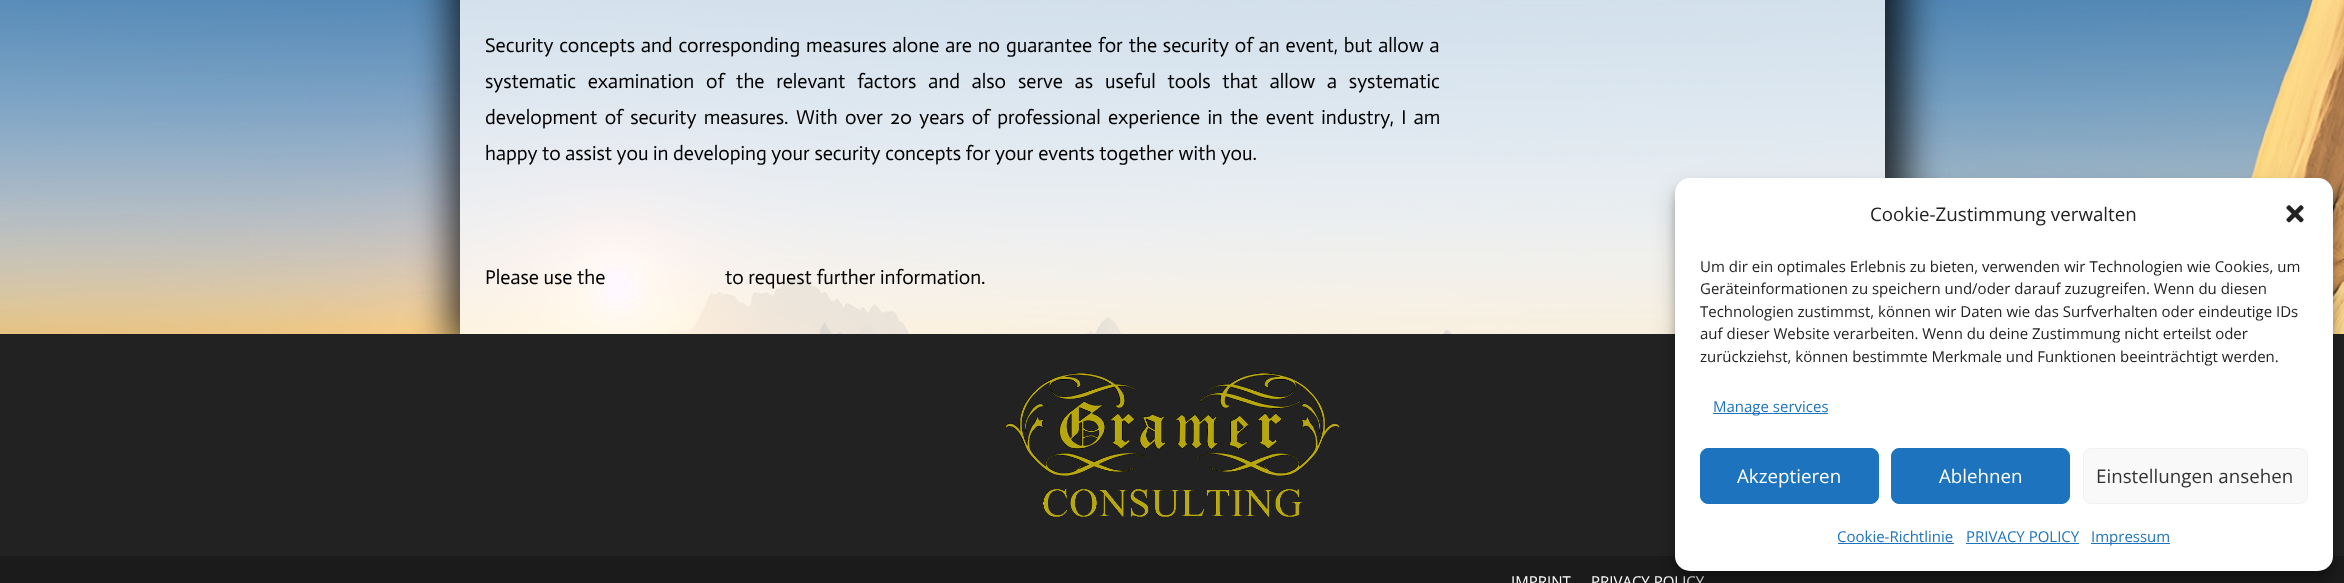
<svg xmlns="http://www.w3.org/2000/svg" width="2344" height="583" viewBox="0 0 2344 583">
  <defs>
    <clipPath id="clip1"><path d="M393 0H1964V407H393ZM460-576H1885V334H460Z" clip-rule="evenodd"/></clipPath>
    <filter id="blur1" x="-50%" y="-200%" width="200%" height="500%"><feGaussianBlur stdDeviation="19"/></filter>
    <filter id="blur2" x="-50%" y="-200%" width="200%" height="500%"><feGaussianBlur stdDeviation="4"/></filter>
    <filter id="blur3" x="-50%" y="-200%" width="200%" height="500%"><feGaussianBlur stdDeviation="12.5"/></filter>
  </defs>
  <rect width="100%" height="100%" fill="#ffffff"/>
  <image x="0" y="0" width="2344" height="334" href="img1.png"/>
  <g clip-path="url(#clip1)">
    <rect x="451" y="-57" width="1455" height="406" fill="#000000" fill-opacity="0.78" filter="url(#blur1)"/>
  </g>
  <rect x="460" y="0" width="1425" height="334" fill="#ffffff" fill-opacity="0.75"/>
  <text x="485" y="52" word-spacing="1.25" font-family="Actor" font-size="20" fill="#000000">Security concepts and corresponding measures alone are no guarantee for the security of an event, but allow a</text>
  <text x="485" y="88" word-spacing="7.25" font-family="Actor" font-size="20" fill="#000000">systematic examination of the relevant factors and also serve as useful tools that allow a systematic</text>
  <text x="485" y="124" word-spacing="2.75" font-family="Actor" font-size="20" fill="#000000">development of security measures.</text>
  <text x="796" y="124" word-spacing="2.75" font-family="Actor" font-size="20" fill="#000000">With over 20 years of professional experience in the event industry, I am</text>
  <text x="485" y="160" font-family="Actor" font-size="20" fill="#000000">happy to assist you in developing your security concepts for your events together with you.</text>
  <text x="485" y="284" font-family="Actor" font-size="20" fill="#000000">Please use the</text>
  <text x="725" y="284" font-family="Actor" font-size="20" fill="#000000">to request further information.</text>
  <rect x="0" y="334" width="2344" height="222" fill="#222222"/>
  <image x="1006" y="373" width="334" height="144" href="img2.png"/>
  <rect x="0" y="556" width="2344" height="27" fill="#1b1b1b"/>
  <text x="1511" y="587" font-family="Open Sans" font-size="15" fill="#ffffff">IMPRINT</text>
  <text x="1591" y="587" font-family="Open Sans" font-size="15" fill="#ffffff">PRIVACY POLICY</text>
  <rect x="1675" y="185" width="658" height="394" rx="15" fill="#000000" fill-opacity="0.23" filter="url(#blur2)"/>
  <rect x="1675" y="190" width="658" height="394" rx="15" fill="#000000" fill-opacity="0.19" filter="url(#blur3)"/>
  <rect x="1675" y="178" width="658" height="393" rx="15" fill="#ffffff"/>
  <text x="1870" y="221" font-family="Open Sans" font-size="18.75" fill="#222222">Cookie-Zustimmung verwalten</text>
  <image x="2286" y="205" width="18" height="18" href="img3.png"/>
  <text x="1700" y="272" font-family="Open Sans" font-size="15" fill="#222222">Um dir ein optimales Erlebnis zu bieten, verwenden wir Technologien wie Cookies, um</text>
  <text x="1700" y="294" font-family="Open Sans" font-size="15" fill="#222222">Geräteinformationen zu speichern und/oder darauf zuzugreifen. Wenn du diesen</text>
  <text x="1700" y="317" font-family="Open Sans" font-size="15" fill="#222222">Technologien zustimmst, können wir Daten wie das Surfverhalten oder eindeutige IDs</text>
  <text x="1700" y="339" font-family="Open Sans" font-size="15" fill="#222222">auf dieser Website verarbeiten. Wenn du deine Zustimmung nicht erteilst oder</text>
  <text x="1700" y="362" font-family="Open Sans" font-size="15" fill="#222222">zurückziehst, können bestimmte Merkmale und Funktionen beeinträchtigt werden.</text>
  <rect x="1713" y="413" width="115" height="1" fill="#1e73be"/>
  <text x="1713" y="412" font-family="Open Sans" font-size="15" fill="#1e73be">Manage services</text>
  <rect x="1700.5" y="448.5" width="178" height="55" rx="7.5" fill="#1e73be" stroke="#1e73be"/>
  <text x="1737" y="483" font-family="Open Sans" font-size="18.75" fill="#ffffff">Akzeptieren</text>
  <rect x="1891.5" y="448.5" width="178" height="55" rx="7.5" fill="#1e73be" stroke="#1e73be"/>
  <text x="1939" y="483" font-family="Open Sans" font-size="18.75" fill="#ffffff">Ablehnen</text>
  <rect x="2083.5" y="448.5" width="224" height="55" rx="7.5" fill="#f9f9f9" stroke="#f2f2f2"/>
  <text x="2096" y="483" font-family="Open Sans" font-size="18.75" fill="#333333">Einstellungen ansehen</text>
  <text x="1837" y="542" font-family="Open Sans" font-size="15" fill="#1e73be">Cookie-Richtlinie</text>
  <rect x="1838" y="543" width="116" height="1" fill="#1e73be"/>
  <text x="1966" y="542" font-family="Open Sans" font-size="15" fill="#1e73be">PRIVACY POLICY</text>
  <rect x="1966" y="543" width="113" height="1" fill="#1e73be"/>
  <rect x="2091" y="543" width="79" height="1" fill="#1e73be"/>
  <text x="2091" y="542" font-family="Open Sans" font-size="15" fill="#1e73be">Impressum</text>
</svg>
